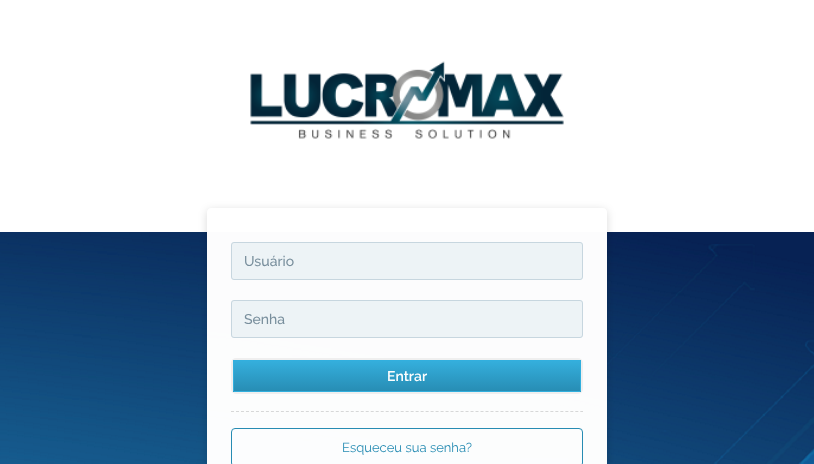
<svg xmlns="http://www.w3.org/2000/svg" width="814" height="464" viewBox="0 0 814 464">
  <defs>
    <clipPath id="clip1"><path d="M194 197H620V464H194ZM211 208H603C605 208 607 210 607 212V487C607 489 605 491 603 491H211C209 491 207 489 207 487V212C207 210 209 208 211 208Z" clip-rule="evenodd"/></clipPath>
    <filter id="blur1" x="-50%" y="-200%" width="200%" height="500%"><feGaussianBlur stdDeviation="4"/></filter>
    <linearGradient id="g1" gradientUnits="userSpaceOnUse" x1="407" y1="360" x2="407" y2="392"><stop offset="0" stop-color="#35b0de"/><stop offset="1" stop-color="#278cb3"/></linearGradient>
  </defs>
  <rect width="100%" height="100%" fill="#ffffff"/>
  <image x="0" y="232" width="814" height="232" href="img1.png"/>
  <image x="250" y="61" width="314" height="78" href="img2.png"/>
  <rect x="207" y="208" width="400" height="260" rx="4" fill="#ffffff" fill-opacity="0.99"/>
  <g clip-path="url(#clip1)">
    <rect x="207" y="210" width="400" height="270" rx="4" fill="#000000" fill-opacity="0.15" filter="url(#blur1)"/>
  </g>
  <rect x="231" y="242" width="352" height="38" rx="3" fill="#edf3f6"/>
  <rect x="231.5" y="242.5" width="351" height="37" rx="2.5" fill="none" stroke="#c6d6df" stroke-opacity="0.99"/>
  <text x="244" y="266" font-family="Raleway" font-size="14" font-weight="500" fill="#788e9c">Usuário</text>
  <rect x="231" y="300" width="352" height="38" rx="3" fill="#edf3f6"/>
  <rect x="231.5" y="300.5" width="351" height="37" rx="2.5" fill="none" stroke="#c6d6df" stroke-opacity="0.99"/>
  <text x="244" y="324" font-family="Raleway" font-size="14" font-weight="500" fill="#788e9c">Senha</text>
  <rect x="231" y="358" width="352" height="36" rx="5" fill="#efefef"/>
  <rect x="233" y="360" width="348" height="32" fill="url(#g1)"/>
  <rect x="233.5" y="360.5" width="347" height="31" rx="0.5" fill="none" stroke="#33afde" stroke-opacity="0.99"/>
  <text x="387" y="381" font-family="Raleway" font-size="14" font-weight="600" fill="#fdfefe">Entrar</text>
  <path d="M231 411.5H583" fill="none" stroke="#d7d8d8" stroke-dasharray="3 1.99"/>
  <rect x="231.5" y="428.5" width="351" height="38" rx="3.5" fill="none" stroke="#278cb3"/>
  <text x="342" y="452" font-family="Raleway" font-size="13" fill="#278cb3">Esqueceu sua senha?</text>
</svg>
